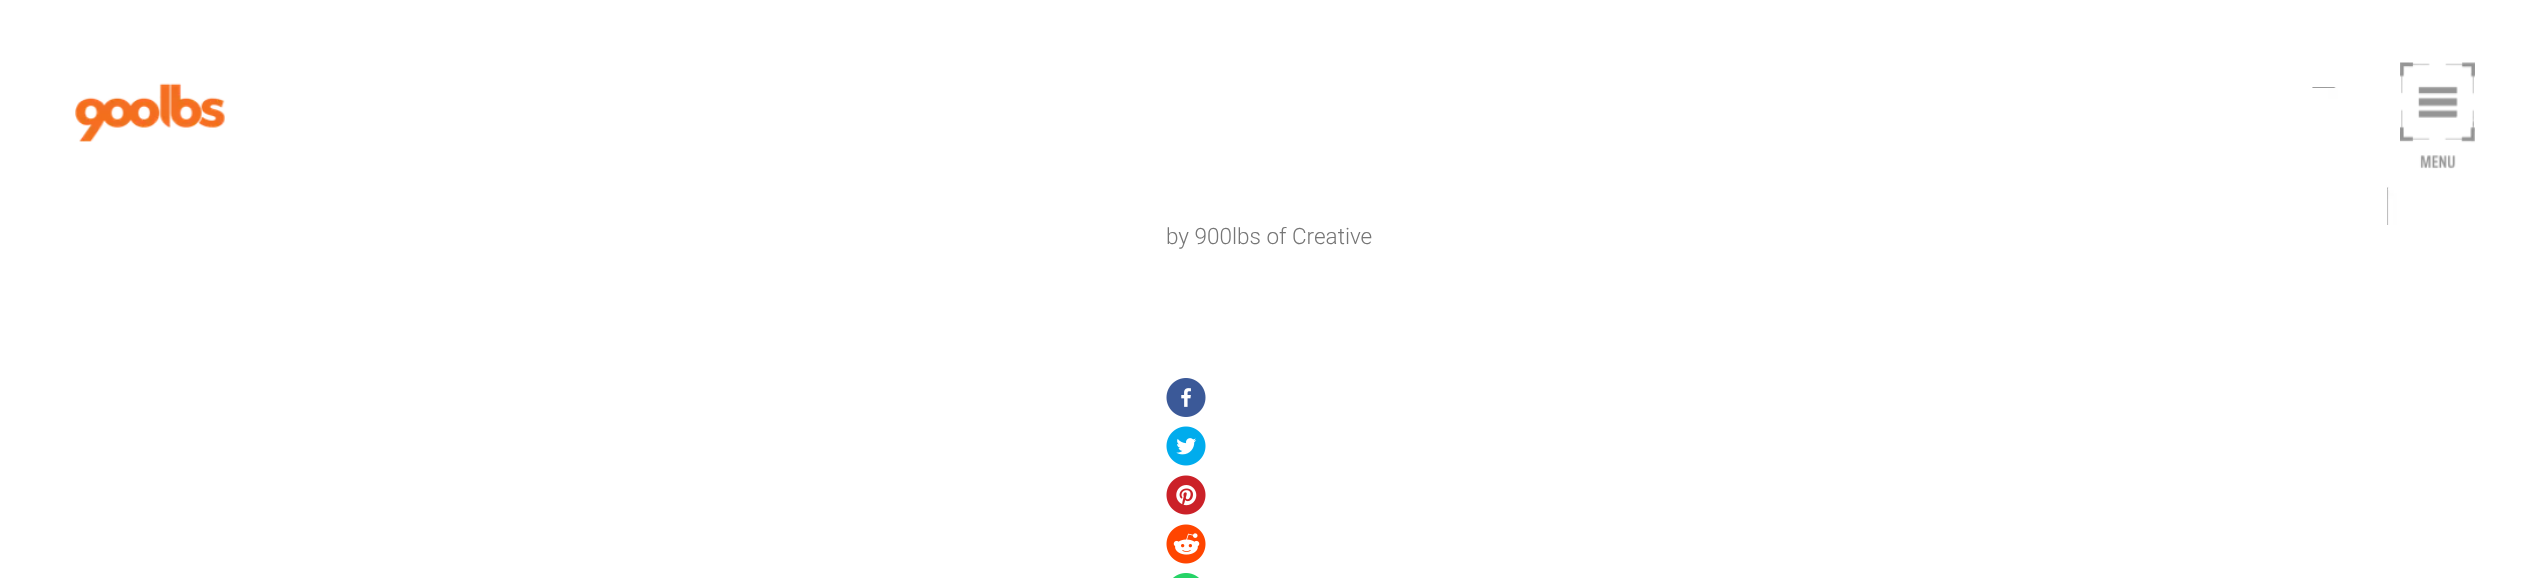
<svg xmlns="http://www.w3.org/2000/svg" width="2537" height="578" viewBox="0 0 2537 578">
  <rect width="100%" height="100%" fill="#ffffff"/>
  <image x="75" y="83" width="150" height="59" href="img1.png"/>
  <image x="2312" y="87" width="77" height="138" href="img4.png"/>
  <image x="2312" y="62" width="163" height="163" href="img2.png"/>
  <image x="2400" y="62" width="75" height="107" href="img3.png"/>
  <text x="1166" y="244" font-family="Roboto" font-size="22.5" font-weight="300" fill="#767676">by 900lbs of Creative</text>
  <image x="1166" y="378" width="40" height="39" href="img5.png"/>
  <image x="1166" y="426" width="40" height="40" href="img6.png"/>
  <image x="1166" y="475" width="40" height="40" href="img7.png"/>
  <image x="1166" y="524" width="40" height="40" href="img8.png"/>
  <image x="1173" y="573" width="26" height="5" href="img9.png"/>
</svg>
